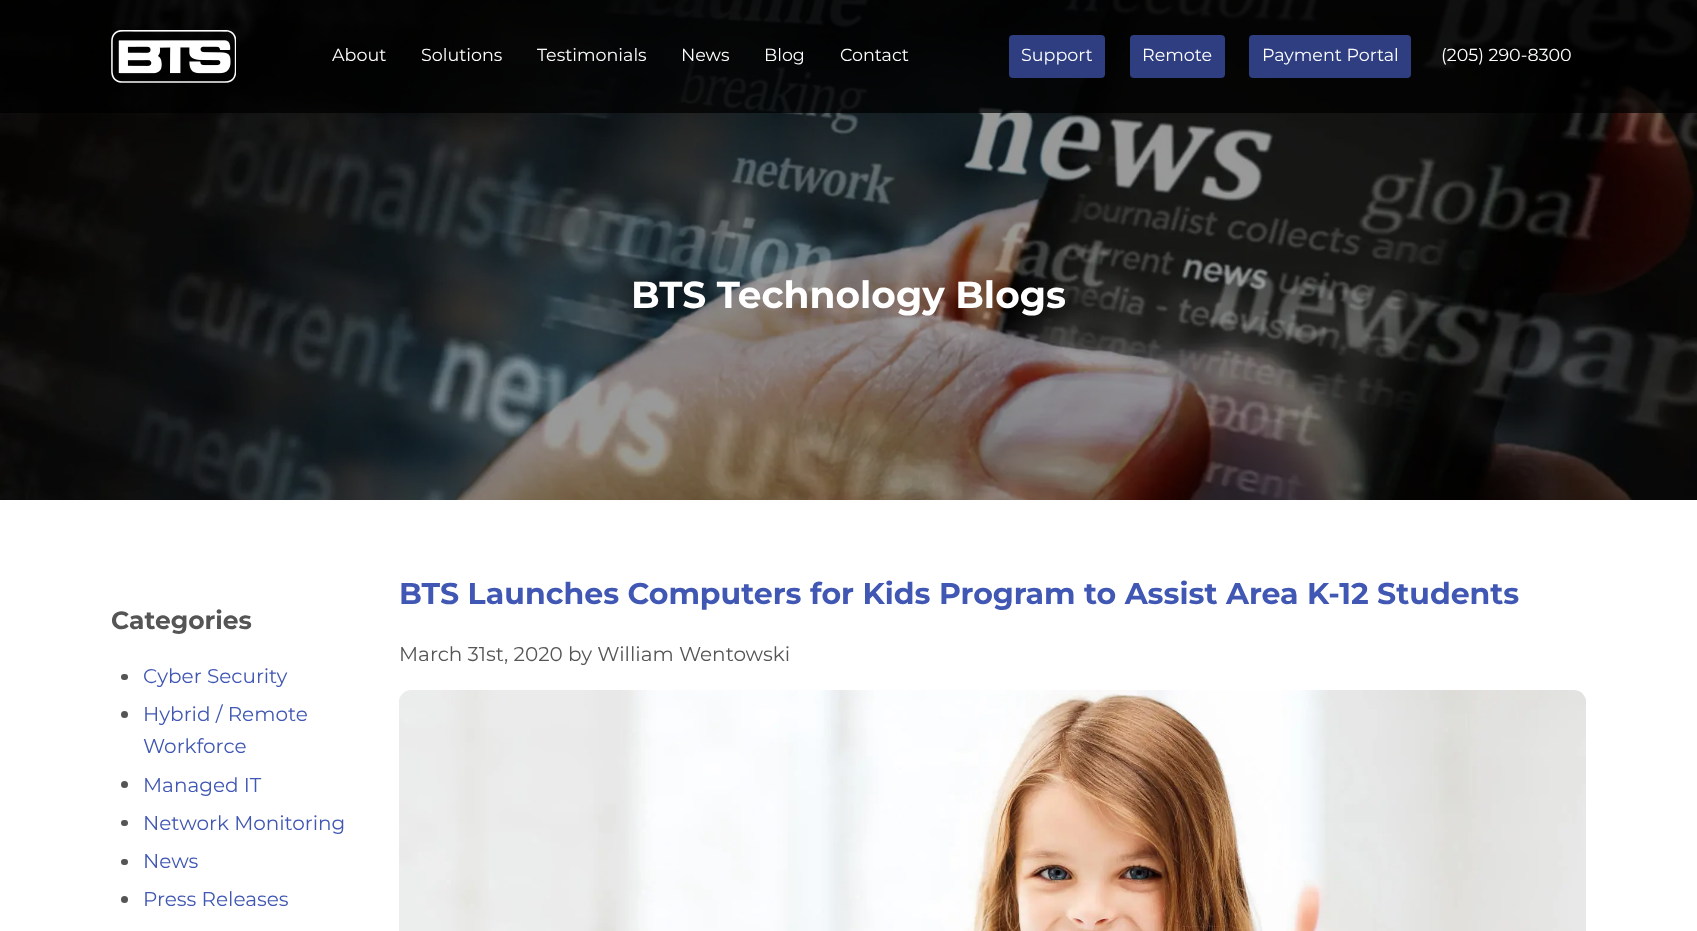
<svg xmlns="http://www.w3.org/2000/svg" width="1697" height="931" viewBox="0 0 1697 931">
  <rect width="100%" height="100%" fill="#ffffff"/>
  <image x="0" y="0" width="1697" height="500" href="img2.png"/>
  <rect x="0" y="0" width="1697" height="113" fill="#000000" fill-opacity="0.75"/>
  <image x="111" y="30" width="125" height="53" href="img1.png"/>
  <text x="332" y="61" font-family="Montserrat" font-size="17.5" fill="#ffffff">About</text>
  <text x="421" y="61" font-family="Montserrat" font-size="17.5" fill="#ffffff">Solutions</text>
  <text x="537" y="61" font-family="Montserrat" font-size="17.5" fill="#ffffff">Testimonials</text>
  <text x="681" y="61" font-family="Montserrat" font-size="17.5" fill="#ffffff">News</text>
  <text x="764" y="61" font-family="Montserrat" font-size="17.5" fill="#ffffff">Blog</text>
  <text x="840" y="61" font-family="Montserrat" font-size="17.5" fill="#ffffff">Contact</text>
  <rect x="1009" y="35" width="96" height="43" rx="4" fill="#2e3e80"/>
  <text x="1021" y="61" font-family="Montserrat" font-size="17.5" fill="#ffffff">Support</text>
  <rect x="1130" y="35" width="95" height="43" rx="4" fill="#2e3e80"/>
  <text x="1142" y="61" font-family="Montserrat" font-size="17.5" fill="#ffffff">Remote</text>
  <rect x="1249" y="35" width="162" height="43" rx="4" fill="#2e3e80"/>
  <text x="1262" y="61" font-family="Montserrat" font-size="17.5" fill="#ffffff">Payment Portal</text>
  <text x="1441" y="61" font-family="Montserrat" font-size="17.5" fill="#ffffff">(205) 290-8300</text>
  <text x="631" y="308" font-family="Montserrat" font-size="37.5" font-weight="bold" fill="#ffffff">BTS Technology Blogs</text>
  <text x="111" y="629" font-family="Montserrat" font-size="25" font-weight="bold" fill="#555555">Categories</text>
  <rect x="121" y="674" width="7" height="6" rx="3" fill="#555555"/>
  <text x="143" y="683" font-family="Montserrat" font-size="20" fill="#4057b3">Cyber Security</text>
  <circle cx="124.5" cy="714.5" r="3.5" fill="#555555"/>
  <text x="143" y="721" font-family="Montserrat" font-size="20" fill="#4057b3">Hybrid / Remote</text>
  <text x="143" y="753" font-family="Montserrat" font-size="20" fill="#4057b3">Workforce</text>
  <circle cx="124.5" cy="784.5" r="3.5" fill="#555555"/>
  <text x="143" y="792" font-family="Montserrat" font-size="20" fill="#4057b3">Managed IT</text>
  <rect x="121" y="820" width="7" height="6" rx="3" fill="#555555"/>
  <text x="143" y="830" font-family="Montserrat" font-size="20" fill="#4057b3">Network Monitoring</text>
  <rect x="121" y="859" width="7" height="6" rx="3" fill="#555555"/>
  <text x="143" y="868" font-family="Montserrat" font-size="20" fill="#4057b3">News</text>
  <circle cx="124.5" cy="899.5" r="3.5" fill="#555555"/>
  <text x="143" y="906" font-family="Montserrat" font-size="20" fill="#4057b3">Press Releases</text>
  <text x="399" y="604" font-family="Montserrat" font-size="30" font-weight="bold" fill="#4057b3">BTS Launches Computers for Kids Program to Assist Area K-12 Students</text>
  <text x="399" y="661" font-family="Montserrat" font-size="20" fill="#555555">March 31st, 2020 by William Wentowski</text>
  <image x="399" y="690" width="1187" height="241" href="img3.png"/>
</svg>
